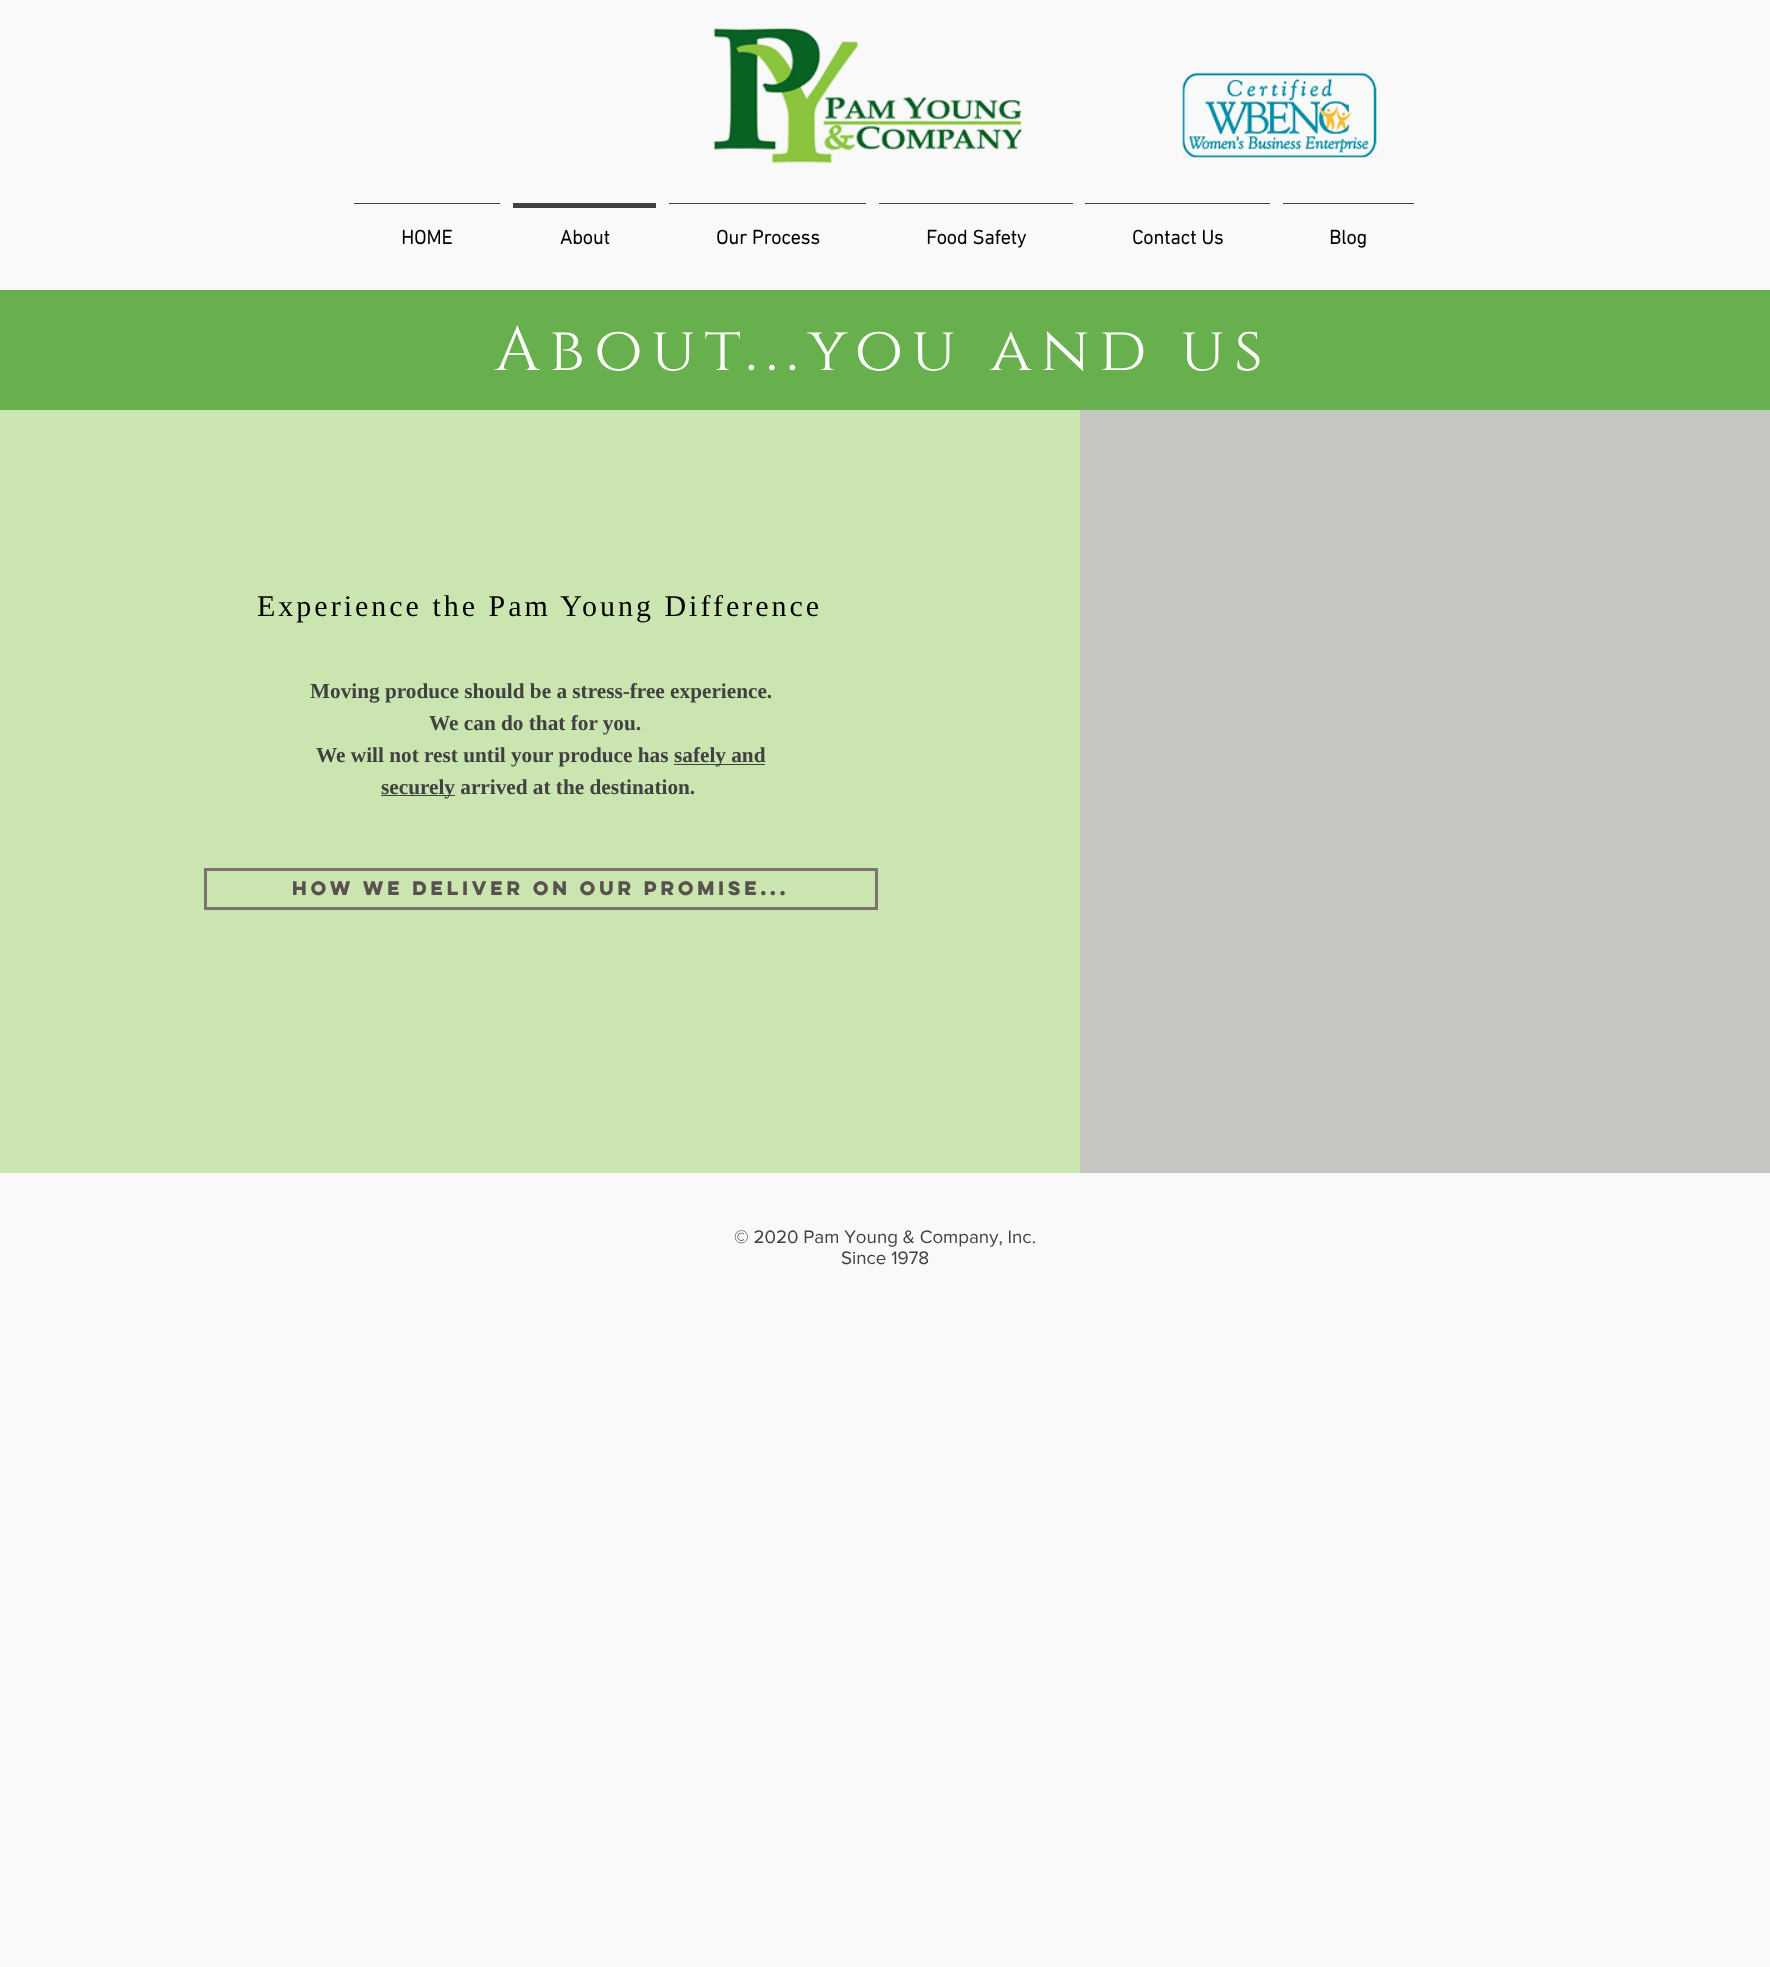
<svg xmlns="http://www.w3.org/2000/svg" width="1770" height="1967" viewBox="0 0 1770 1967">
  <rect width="100%" height="100%" fill="#f9f9f9"/>
  <image x="713" y="27" width="310" height="137" href="img1.png"/>
  <image x="1182" y="72" width="195" height="86" href="img2.png"/>
  <rect x="354" y="203" width="146" height="1" fill="#414141"/>
  <text x="401" y="244" font-family="'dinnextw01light'" font-size="20" font-weight="bold" fill="#000000">HOME</text>
  <rect x="513" y="203" width="143" height="5" fill="#414141"/>
  <text x="560" y="244" font-family="'dinnextw01light'" font-size="20" font-weight="bold" fill="#000000">About</text>
  <rect x="669" y="203" width="197" height="1" fill="#414141"/>
  <text x="716" y="244" font-family="'dinnextw01light'" font-size="20" font-weight="bold" fill="#000000">Our Process</text>
  <rect x="879" y="203" width="194" height="1" fill="#414141"/>
  <text x="926" y="244" font-family="'dinnextw01light'" font-size="20" font-weight="bold" fill="#000000">Food Safety</text>
  <rect x="1085" y="203" width="185" height="1" fill="#414141"/>
  <text x="1132" y="244" font-family="'dinnextw01light'" font-size="20" font-weight="bold" fill="#000000">Contact Us</text>
  <rect x="1283" y="203" width="131" height="1" fill="#414141"/>
  <text x="1329" y="244" font-family="'dinnextw01light'" font-size="20" font-weight="bold" fill="#000000">Blog</text>
  <rect x="0" y="290" width="1770" height="120" fill="#68b04d"/>
  <text x="495" y="370" font-family="Cinzel" font-size="62.5" letter-spacing="9.4" fill="#fffffe">About...you and us</text>
  <rect x="0" y="410" width="1080" height="763" fill="#cae5af"/>
  <text x="257" y="616" font-family="Liberation Serif" font-size="30" letter-spacing="3" fill="#000000">Experience the Pam Young Difference</text>
  <text x="310" y="698" font-family="Liberation Serif" font-size="21.25" font-weight="bold" fill="#414141">Moving produce should be a stress-free experience.</text>
  <text x="429" y="730" font-family="Liberation Serif" font-size="21.25" font-weight="bold" fill="#414141">We can do that for you.</text>
  <text x="316" y="762" font-family="Liberation Serif" font-size="21.25" font-weight="bold" fill="#414141">We will not rest until your produce has</text>
  <rect x="674" y="764" width="91" height="1" fill="#414141"/>
  <text x="674" y="762" font-family="Liberation Serif" font-size="21.25" font-weight="bold" fill="#414141">safely and</text>
  <rect x="381" y="795" width="74" height="1" fill="#414141"/>
  <text x="381" y="794" font-family="Liberation Serif" font-size="21.25" font-weight="bold" fill="#414141">securely arrived at the destination.</text>
  <rect x="205.5" y="869.5" width="671" height="39" fill="none" stroke="#7b736f" stroke-width="3"/>
  <text x="292" y="895" font-family="'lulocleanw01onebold'" font-size="17.5" font-weight="bold" fill="#59514d">How we deliver on our promise...</text>
  <rect x="1080" y="410" width="690" height="763" fill="#c4c7c1"/>
  <text x="734" y="1243" font-family="'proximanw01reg'" font-size="18.75" fill="#414141">© 2020 Pam Young &amp; Company, Inc.</text>
  <text x="841" y="1264" font-family="'proximanw01reg'" font-size="18.75" fill="#414141">Since 1978</text>
</svg>
